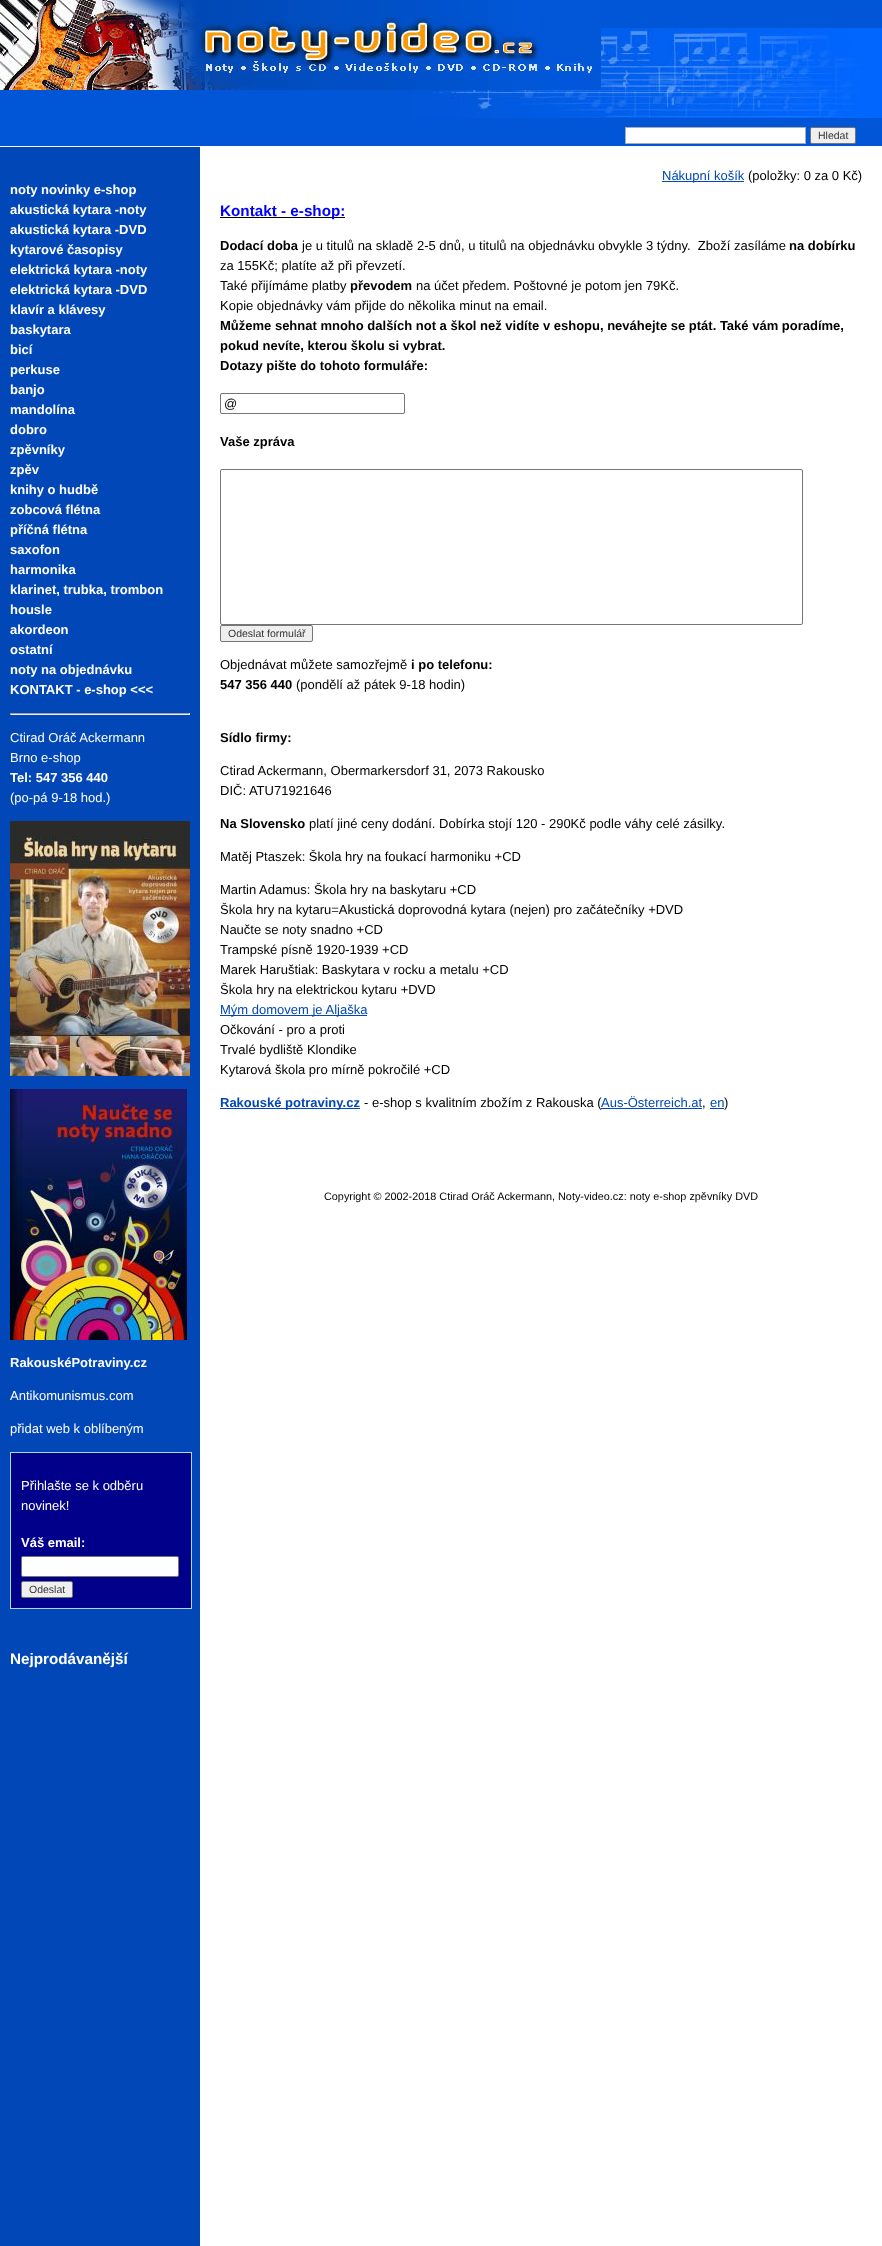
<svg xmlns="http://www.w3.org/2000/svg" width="882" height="2246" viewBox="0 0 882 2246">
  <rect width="100%" height="100%" fill="#ffffff"/>
  <rect x="0" y="147" width="200" height="2099" fill="#0147b7"/>
  <rect x="0" y="0" width="882" height="146" fill="#0156d7"/>
  <image x="413" y="28" width="469" height="90" href="img1.png"/>
  <image x="0" y="0" width="601" height="90" href="img2.png"/>
  <rect x="625.5" y="127.5" width="180" height="16" fill="#ffffff" stroke="#a5acb2"/>
  <rect x="810.5" y="127.5" width="45" height="16" rx="1.5" fill="#efefef" stroke="#767676"/>
  <text x="818" y="139" font-family="Liberation Sans" font-size="10.5" fill="#343434">Hledat</text>
  <text x="10" y="194" font-family="Liberation Sans" font-size="13" font-weight="bold" fill="#ffffff">noty novinky e-shop</text>
  <text x="10" y="214" font-family="Liberation Sans" font-size="13" font-weight="bold" fill="#ffffff">akustická kytara -noty</text>
  <text x="10" y="234" font-family="Liberation Sans" font-size="13" font-weight="bold" fill="#ffffff">akustická kytara -DVD</text>
  <text x="10" y="254" font-family="Liberation Sans" font-size="13" font-weight="bold" fill="#ffffff">kytarové časopisy</text>
  <text x="10" y="274" font-family="Liberation Sans" font-size="13" font-weight="bold" fill="#ffffff">elektrická kytara -noty</text>
  <text x="10" y="294" font-family="Liberation Sans" font-size="13" font-weight="bold" fill="#ffffff">elektrická kytara -DVD</text>
  <text x="10" y="314" font-family="Liberation Sans" font-size="13" font-weight="bold" fill="#ffffff">klavír a klávesy</text>
  <text x="10" y="334" font-family="Liberation Sans" font-size="13" font-weight="bold" fill="#ffffff">baskytara</text>
  <text x="10" y="354" font-family="Liberation Sans" font-size="13" font-weight="bold" fill="#ffffff">bicí</text>
  <text x="10" y="374" font-family="Liberation Sans" font-size="13" font-weight="bold" fill="#ffffff">perkuse</text>
  <text x="10" y="394" font-family="Liberation Sans" font-size="13" font-weight="bold" fill="#ffffff">banjo</text>
  <text x="10" y="414" font-family="Liberation Sans" font-size="13" font-weight="bold" fill="#ffffff">mandolína</text>
  <text x="10" y="434" font-family="Liberation Sans" font-size="13" font-weight="bold" fill="#ffffff">dobro</text>
  <text x="10" y="454" font-family="Liberation Sans" font-size="13" font-weight="bold" fill="#ffffff">zpěvníky</text>
  <text x="10" y="474" font-family="Liberation Sans" font-size="13" font-weight="bold" fill="#ffffff">zpěv</text>
  <text x="10" y="494" font-family="Liberation Sans" font-size="13" font-weight="bold" fill="#ffffff">knihy o hudbě</text>
  <text x="10" y="514" font-family="Liberation Sans" font-size="13" font-weight="bold" fill="#ffffff">zobcová flétna</text>
  <text x="10" y="534" font-family="Liberation Sans" font-size="13" font-weight="bold" fill="#ffffff">příčná flétna</text>
  <text x="10" y="554" font-family="Liberation Sans" font-size="13" font-weight="bold" fill="#ffffff">saxofon</text>
  <text x="10" y="574" font-family="Liberation Sans" font-size="13" font-weight="bold" fill="#ffffff">harmonika</text>
  <text x="10" y="594" font-family="Liberation Sans" font-size="13" font-weight="bold" fill="#ffffff">klarinet, trubka, trombon</text>
  <text x="10" y="614" font-family="Liberation Sans" font-size="13" font-weight="bold" fill="#ffffff">housle</text>
  <text x="10" y="634" font-family="Liberation Sans" font-size="13" font-weight="bold" fill="#ffffff">akordeon</text>
  <text x="10" y="654" font-family="Liberation Sans" font-size="13" font-weight="bold" fill="#ffffff">ostatní</text>
  <text x="10" y="674" font-family="Liberation Sans" font-size="13" font-weight="bold" fill="#ffffff">noty na objednávku</text>
  <text x="10" y="694" font-family="Liberation Sans" font-size="13" font-weight="bold" fill="#ffffff">KONTAKT - e-shop &lt;&lt;&lt;</text>
  <rect x="10" y="713" width="180" height="1" fill="#9f9f9f"/>
  <rect x="189" y="713" width="1" height="2" fill="#eeeeee"/>
  <rect x="10" y="714" width="180" height="1" fill="#eeeeee"/>
  <rect x="10" y="713" width="1" height="2" fill="#9f9f9f"/>
  <text x="10" y="742" font-family="Liberation Sans" font-size="13" fill="#ffffff">Ctirad Oráč Ackermann</text>
  <text x="10" y="762" font-family="Liberation Sans" font-size="13" fill="#ffffff">Brno e-shop</text>
  <text x="10" y="782" font-family="Liberation Sans" font-size="13" font-weight="bold" fill="#ffffff">Tel: 547 356 440</text>
  <text x="10" y="802" font-family="Liberation Sans" font-size="13" fill="#ffffff">(po-pá 9-18 hod.)</text>
  <image x="10" y="821" width="180" height="255" href="img3.png"/>
  <image x="10" y="1089" width="177" height="251" href="img4.png"/>
  <text x="10" y="1367" font-family="Liberation Sans" font-size="13" font-weight="bold" fill="#ffffff">RakouskéPotraviny.cz</text>
  <text x="10" y="1400" font-family="Liberation Sans" font-size="13" fill="#ffffff">Antikomunismus.com</text>
  <text x="10" y="1433" font-family="Liberation Sans" font-size="13" fill="#ffffff">přidat web k oblíbeným</text>
  <rect x="10.5" y="1452.5" width="181" height="156" fill="#00008b" stroke="#add8e6"/>
  <text x="21" y="1490" font-family="Liberation Sans" font-size="13" fill="#ffffff">Přihlašte se k odběru</text>
  <text x="21" y="1510" font-family="Liberation Sans" font-size="13" fill="#ffffff">novinek!</text>
  <text x="21" y="1547" font-family="Liberation Sans" font-size="13" font-weight="bold" fill="#ffffff">Váš email:</text>
  <rect x="21.5" y="1556.5" width="157" height="20" rx="1.5" fill="#ffffff" stroke="#767676"/>
  <rect x="21.5" y="1581.5" width="51" height="16" rx="1.5" fill="#efefef" stroke="#767676"/>
  <text x="29" y="1593" font-family="Liberation Sans" font-size="10.5" fill="#343434">Odeslat</text>
  <text x="10" y="1664" font-family="Liberation Sans" font-size="15.25" font-weight="bold" fill="#ffffff">Nejprodávanější</text>
  <rect x="662" y="181" width="82" height="1" fill="#0147b7"/>
  <text x="662" y="180" font-family="Liberation Sans" font-size="13" fill="#0147b7">Nákupní košík</text>
  <text x="748" y="180" font-family="Liberation Sans" font-size="13" fill="#000000">(položky: 0 za 0 Kč)</text>
  <rect x="220" y="217" width="125" height="1" fill="#000000"/>
  <text x="220" y="216" font-family="Liberation Sans" font-size="15.25" font-weight="bold" fill="#0000ff">Kontakt - e-shop:</text>
  <text x="220" y="250" font-family="Liberation Sans" font-size="13" font-weight="bold" fill="#000000">Dodací doba</text>
  <text x="302" y="250" font-family="Liberation Sans" font-size="13" fill="#000000" xml:space="preserve">je u titulů na skladě 2-5 dnů, u titulů na objednávku obvykle 3 týdny.  Zboží zasíláme</text>
  <text x="789" y="250" font-family="Liberation Sans" font-size="13" font-weight="bold" fill="#000000">na dobírku</text>
  <text x="220" y="270" font-family="Liberation Sans" font-size="13" fill="#000000">za 155Kč; platíte až při převzetí.</text>
  <text x="220" y="290" font-family="Liberation Sans" font-size="13" fill="#000000">Také přijímáme platby</text>
  <text x="350" y="290" font-family="Liberation Sans" font-size="13" font-weight="bold" fill="#000000">převodem</text>
  <text x="416" y="290" font-family="Liberation Sans" font-size="13" fill="#000000">na účet předem. Poštovné je potom jen 79Kč.</text>
  <text x="220" y="310" font-family="Liberation Sans" font-size="13" fill="#000000">Kopie objednávky vám přijde do několika minut na email.</text>
  <text x="220" y="330" font-family="Liberation Sans" font-size="13" font-weight="bold" fill="#000000">Můžeme sehnat mnoho dalších not a škol než vidíte v eshopu, neváhejte se ptát. Také vám poradíme,</text>
  <text x="220" y="350" font-family="Liberation Sans" font-size="13" font-weight="bold" fill="#000000">pokud nevíte, kterou školu si vybrat.</text>
  <text x="220" y="370" font-family="Liberation Sans" font-size="13" font-weight="bold" fill="#000000">Dotazy pište do tohoto formuláře:</text>
  <rect x="220.5" y="393.5" width="184" height="20" rx="1.5" fill="none" stroke="#767676"/>
  <text x="224" y="408" font-family="Liberation Sans" font-size="13" fill="#000000">@</text>
  <text x="220" y="446" font-family="Liberation Sans" font-size="13" font-weight="bold" fill="#000000">Vaše zpráva</text>
  <rect x="220.5" y="469.5" width="582" height="155" rx="1.5" fill="none" stroke="#767676"/>
  <rect x="220.5" y="625.5" width="92" height="16" rx="1.5" fill="#efefef" stroke="#767676"/>
  <text x="228" y="637" font-family="Liberation Sans" font-size="10.5" fill="#343434">Odeslat formulář</text>
  <text x="220" y="669" font-family="Liberation Sans" font-size="13" fill="#000000">Objednávat můžete samozřejmě</text>
  <text x="411" y="669" font-family="Liberation Sans" font-size="13" font-weight="bold" fill="#000000">i po telefonu:</text>
  <text x="220" y="689" font-family="Liberation Sans" font-size="13" font-weight="bold" fill="#000000">547 356 440</text>
  <text x="296" y="689" font-family="Liberation Sans" font-size="13" fill="#000000">(pondělí až pátek 9-18 hodin)</text>
  <text x="220" y="742" font-family="Liberation Sans" font-size="13" font-weight="bold" fill="#000000">Sídlo firmy:</text>
  <text x="220" y="775" font-family="Liberation Sans" font-size="13" fill="#000000">Ctirad Ackermann, Obermarkersdorf 31, 2073 Rakousko</text>
  <text x="220" y="795" font-family="Liberation Sans" font-size="13" fill="#000000">DIČ: ATU71921646</text>
  <text x="220" y="828" font-family="Liberation Sans" font-size="13" font-weight="bold" fill="#000000">Na Slovensko</text>
  <text x="309" y="828" font-family="Liberation Sans" font-size="13" fill="#000000">platí jiné ceny dodání. Dobírka stojí 120 - 290Kč podle váhy celé zásilky.</text>
  <text x="220" y="861" font-family="Liberation Sans" font-size="13" fill="#000000">Matěj Ptaszek: Škola hry na foukací harmoniku +CD</text>
  <text x="220" y="894" font-family="Liberation Sans" font-size="13" fill="#000000">Martin Adamus: Škola hry na baskytaru +CD</text>
  <text x="220" y="914" font-family="Liberation Sans" font-size="13" fill="#000000">Škola hry na kytaru=Akustická doprovodná kytara (nejen) pro začátečníky +DVD</text>
  <text x="220" y="934" font-family="Liberation Sans" font-size="13" fill="#000000">Naučte se noty snadno +CD</text>
  <text x="220" y="954" font-family="Liberation Sans" font-size="13" fill="#000000">Trampské písně 1920-1939 +CD</text>
  <text x="220" y="974" font-family="Liberation Sans" font-size="13" fill="#000000">Marek Haruštiak: Baskytara v rocku a metalu +CD</text>
  <text x="220" y="994" font-family="Liberation Sans" font-size="13" fill="#000000">Škola hry na elektrickou kytaru +DVD</text>
  <rect x="220" y="1015" width="147" height="1" fill="#0147b7"/>
  <text x="220" y="1014" font-family="Liberation Sans" font-size="13" fill="#0147b7">Mým domovem je Aljaška</text>
  <text x="220" y="1034" font-family="Liberation Sans" font-size="13" fill="#000000">Očkování - pro a proti</text>
  <text x="220" y="1054" font-family="Liberation Sans" font-size="13" fill="#000000">Trvalé bydliště Klondike</text>
  <text x="220" y="1074" font-family="Liberation Sans" font-size="13" fill="#000000">Kytarová škola pro mírně pokročilé +CD</text>
  <rect x="220" y="1108" width="140" height="1" fill="#0147b7"/>
  <text x="220" y="1107" font-family="Liberation Sans" font-size="13" font-weight="bold" fill="#0147b7">Rakouské potraviny.cz</text>
  <text x="364" y="1107" font-family="Liberation Sans" font-size="13" fill="#000000">- e-shop s kvalitním zbožím z Rakouska (</text>
  <text x="601" y="1107" font-family="Liberation Sans" font-size="13" fill="#0147b7">Aus-Österreich.at</text>
  <rect x="601" y="1108" width="101" height="1" fill="#0147b7"/>
  <text x="702" y="1107" font-family="Liberation Sans" font-size="13" fill="#000000">,</text>
  <text x="710" y="1107" font-family="Liberation Sans" font-size="13" fill="#0147b7">en</text>
  <rect x="710" y="1108" width="14" height="1" fill="#0147b7"/>
  <text x="724" y="1107" font-family="Liberation Sans" font-size="13" fill="#000000">)</text>
  <text x="324" y="1200" font-family="Liberation Sans" font-size="10.85" fill="#000000">Copyright © 2002-2018 Ctirad Oráč Ackermann, Noty-video.cz: noty e-shop zpěvníky DVD</text>
</svg>
